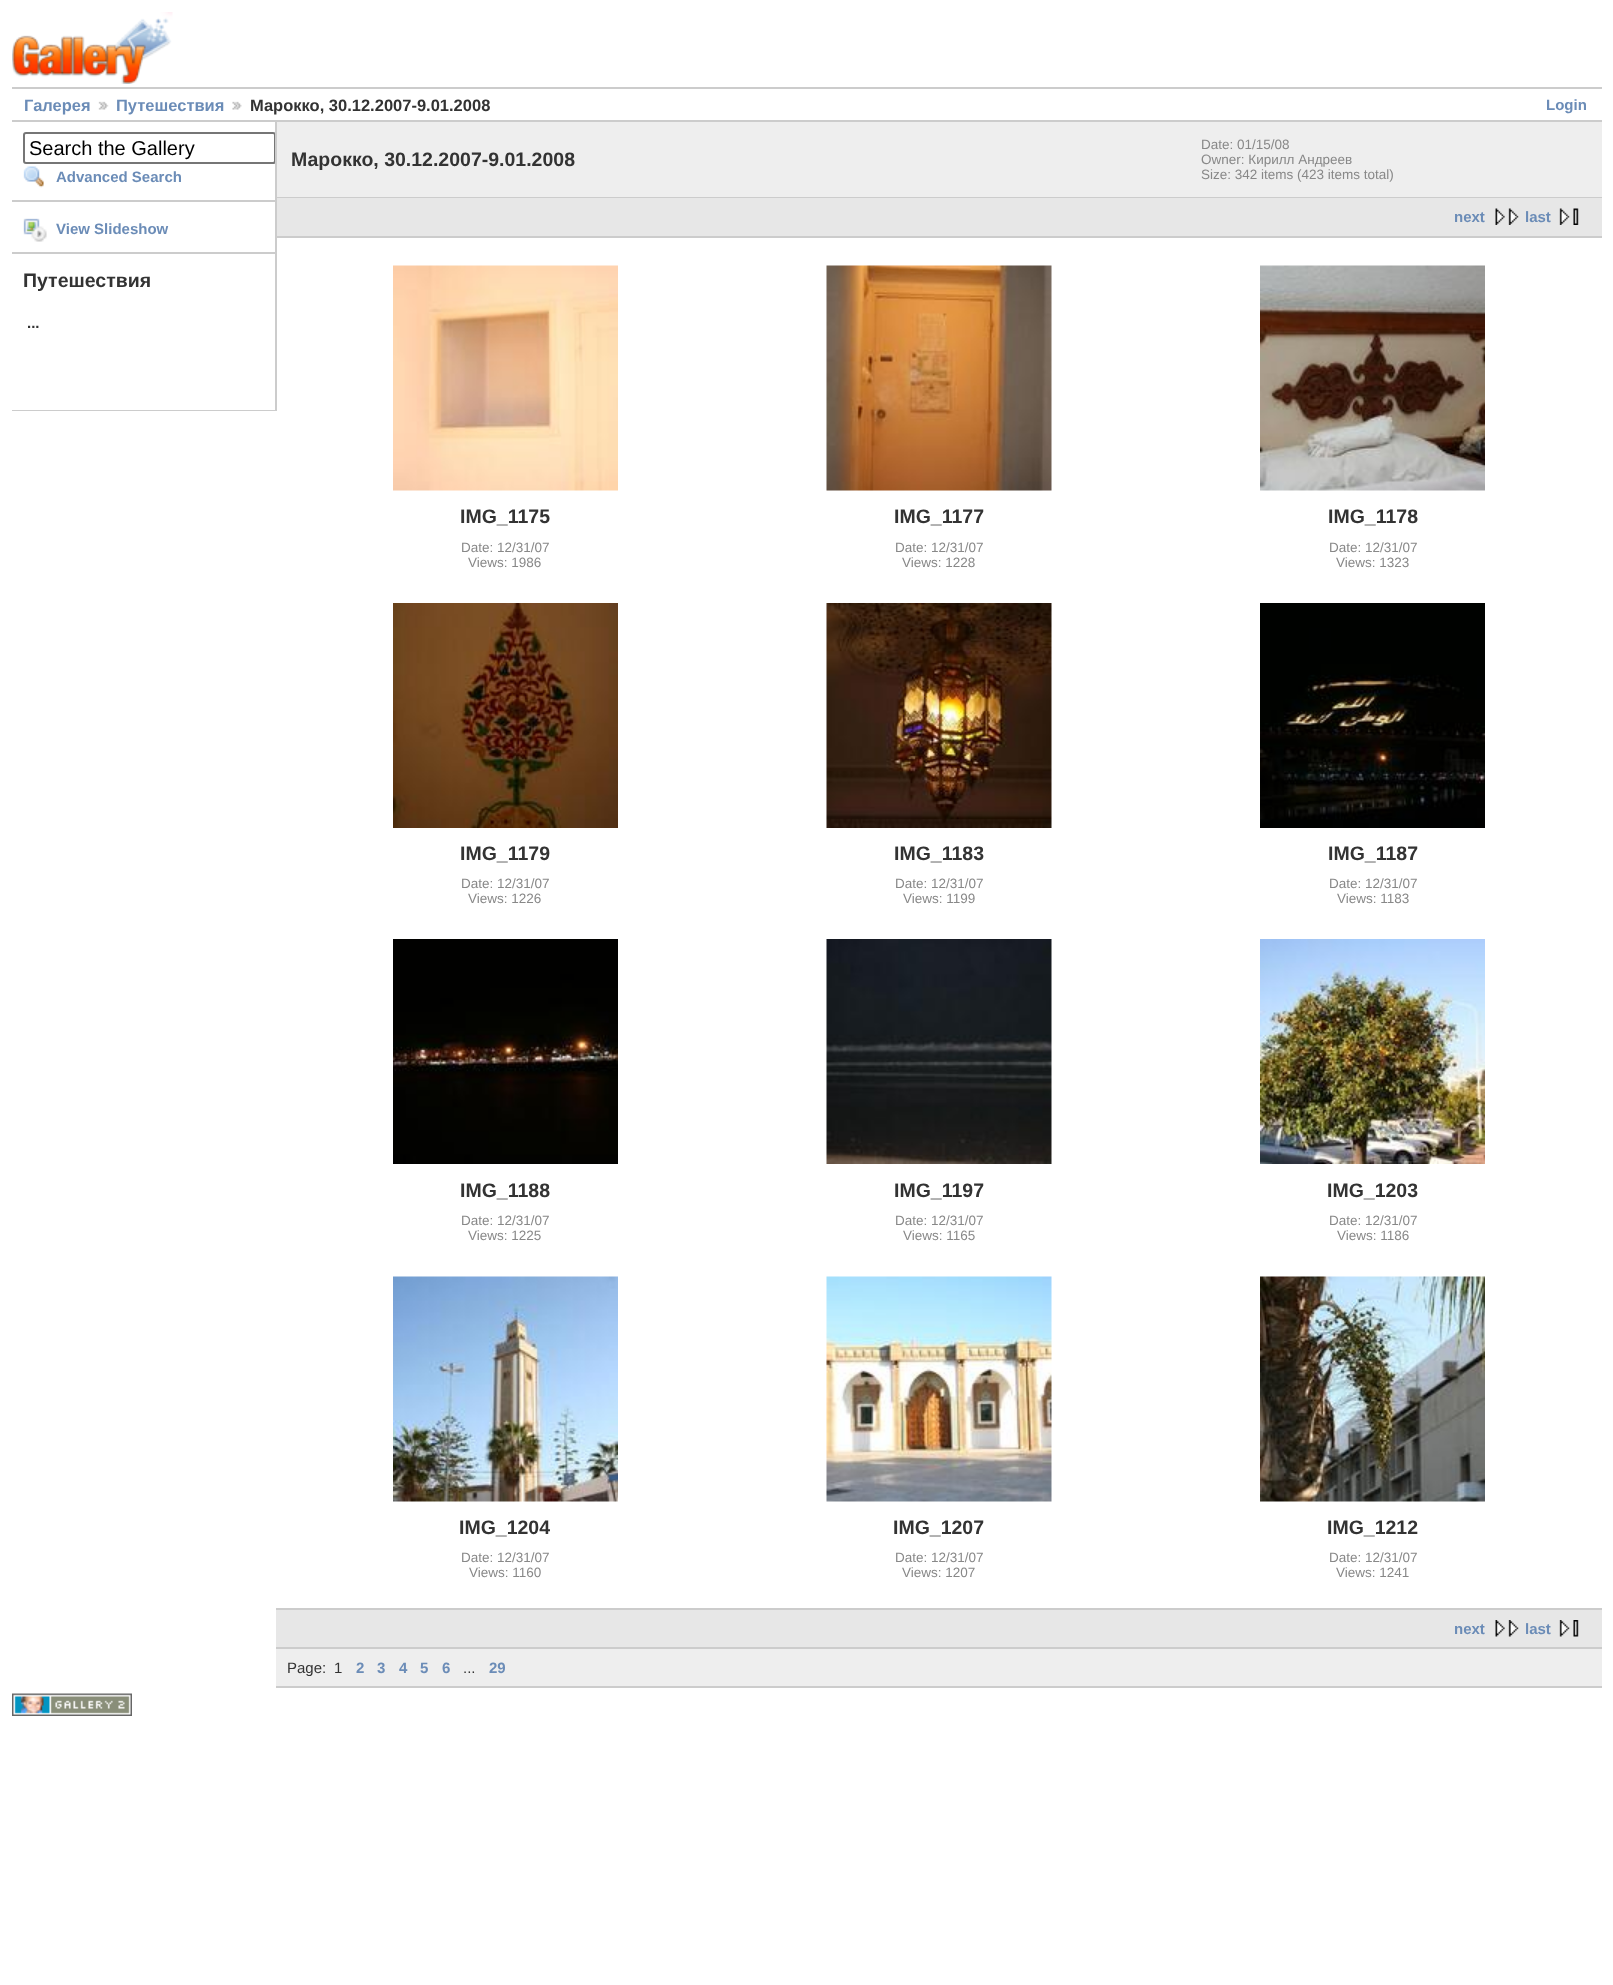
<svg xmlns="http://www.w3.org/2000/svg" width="1613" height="1985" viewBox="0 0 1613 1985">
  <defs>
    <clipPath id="clip1"><rect x="12" y="122" width="263" height="289"/></clipPath>
  </defs>
  <rect width="100%" height="100%" fill="#ffffff"/>
  <image x="12" y="12" width="161" height="72" href="img1.png"/>
  <rect x="12" y="87" width="1590" height="2" fill="#cccccc"/>
  <rect x="12" y="120" width="1590" height="2" fill="#cccccc"/>
  <text x="24" y="111" font-family="Liberation Sans" font-size="16.5" font-weight="bold" fill="#6b8cb7">Галерея</text>
  <image x="98" y="101" width="11" height="9" href="img2.png"/>
  <text x="116" y="111" font-family="Liberation Sans" font-size="16.5" font-weight="bold" fill="#6b8cb7">Путешествия</text>
  <image x="232" y="101" width="10" height="9" href="img3.png"/>
  <text x="250" y="111" font-family="Liberation Sans" font-size="16.5" font-weight="bold" fill="#333333">Марокко, 30.12.2007-9.01.2008</text>
  <text x="1546" y="110" font-family="Liberation Sans" font-size="15" font-weight="bold" fill="#6b8cb7">Login</text>
  <rect x="276" y="197" width="1326" height="1" fill="#cccccc"/>
  <rect x="276" y="236" width="1326" height="2" fill="#cccccc"/>
  <rect x="275" y="122" width="2" height="289" fill="#cccccc"/>
  <rect x="12" y="200" width="263" height="2" fill="#cccccc"/>
  <g clip-path="url(#clip1)">
    <rect x="24" y="133" width="251" height="30" rx="2" fill="none" stroke="#767676" stroke-width="2"/>
  </g>
  <text x="29" y="155" font-family="Liberation Sans" font-size="20" fill="#000000">Search the Gallery</text>
  <image x="23" y="166" width="21" height="22" href="img4.png"/>
  <text x="56" y="182" font-family="Liberation Sans" font-size="15" font-weight="bold" fill="#6b8cb7">Advanced Search</text>
  <rect x="12" y="252" width="263" height="2" fill="#cccccc"/>
  <image x="23" y="218" width="24" height="24" href="img5.png"/>
  <text x="56" y="234" font-family="Liberation Sans" font-size="15" font-weight="bold" fill="#6b8cb7">View Slideshow</text>
  <rect x="12" y="410" width="263" height="1" fill="#cccccc"/>
  <text x="23" y="287" font-family="Liberation Sans" font-size="19.5" font-weight="bold" fill="#333333">Путешествия</text>
  <text x="27" y="328" font-family="Liberation Sans" font-size="15" font-weight="bold" fill="#333333">...</text>
  <rect x="277" y="122" width="1325" height="75" fill="#eeeeee"/>
  <text x="291" y="166" font-family="Liberation Sans" font-size="19.5" font-weight="bold" fill="#333333">Марокко, 30.12.2007-9.01.2008</text>
  <text x="1201" y="149" font-family="Liberation Sans" font-size="13.5" fill="#888888">Date: 01/15/08</text>
  <text x="1201" y="164" font-family="Liberation Sans" font-size="13.5" fill="#888888">Owner: Кирилл Андреев</text>
  <text x="1201" y="179" font-family="Liberation Sans" font-size="13.5" fill="#888888">Size: 342 items (423 items total)</text>
  <rect x="277" y="198" width="1325" height="38" fill="#e7e7e7"/>
  <text x="1454" y="222" font-family="Liberation Sans" font-size="15" font-weight="bold" fill="#6b8cb7">next</text>
  <image x="1495" y="208" width="24" height="17" href="img6.png"/>
  <text x="1525" y="222" font-family="Liberation Sans" font-size="15" font-weight="bold" fill="#6b8cb7">last</text>
  <image x="1559" y="208" width="20" height="17" href="img7.png"/>
  <rect x="276" y="1608" width="1326" height="2" fill="#cccccc"/>
  <image x="393" y="265" width="225" height="226" href="img8.png"/>
  <text x="460" y="523" font-family="Liberation Sans" font-size="19.5" font-weight="bold" fill="#333333">IMG_1175</text>
  <text x="461" y="552" font-family="Liberation Sans" font-size="13.5" fill="#888888">Date: 12/31/07</text>
  <text x="468" y="567" font-family="Liberation Sans" font-size="13.5" fill="#888888">Views: 1986</text>
  <image x="826" y="265" width="226" height="226" href="img9.png"/>
  <text x="894" y="523" font-family="Liberation Sans" font-size="19.5" font-weight="bold" fill="#333333">IMG_1177</text>
  <text x="895" y="552" font-family="Liberation Sans" font-size="13.5" fill="#888888">Date: 12/31/07</text>
  <text x="902" y="567" font-family="Liberation Sans" font-size="13.5" fill="#888888">Views: 1228</text>
  <image x="1260" y="265" width="225" height="226" href="img10.png"/>
  <text x="1328" y="523" font-family="Liberation Sans" font-size="19.5" font-weight="bold" fill="#333333">IMG_1178</text>
  <text x="1329" y="552" font-family="Liberation Sans" font-size="13.5" fill="#888888">Date: 12/31/07</text>
  <text x="1336" y="567" font-family="Liberation Sans" font-size="13.5" fill="#888888">Views: 1323</text>
  <image x="393" y="603" width="225" height="225" href="img11.png"/>
  <text x="460" y="860" font-family="Liberation Sans" font-size="19.5" font-weight="bold" fill="#333333">IMG_1179</text>
  <text x="461" y="888" font-family="Liberation Sans" font-size="13.5" fill="#888888">Date: 12/31/07</text>
  <text x="468" y="903" font-family="Liberation Sans" font-size="13.5" fill="#888888">Views: 1226</text>
  <image x="826" y="603" width="226" height="225" href="img12.png"/>
  <text x="894" y="860" font-family="Liberation Sans" font-size="19.5" font-weight="bold" fill="#333333">IMG_1183</text>
  <text x="895" y="888" font-family="Liberation Sans" font-size="13.5" fill="#888888">Date: 12/31/07</text>
  <text x="903" y="903" font-family="Liberation Sans" font-size="13.5" fill="#888888">Views: 1199</text>
  <image x="1260" y="603" width="225" height="225" href="img13.png"/>
  <text x="1328" y="860" font-family="Liberation Sans" font-size="19.5" font-weight="bold" fill="#333333">IMG_1187</text>
  <text x="1329" y="888" font-family="Liberation Sans" font-size="13.5" fill="#888888">Date: 12/31/07</text>
  <text x="1337" y="903" font-family="Liberation Sans" font-size="13.5" fill="#888888">Views: 1183</text>
  <image x="393" y="939" width="225" height="225" href="img14.png"/>
  <text x="460" y="1197" font-family="Liberation Sans" font-size="19.5" font-weight="bold" fill="#333333">IMG_1188</text>
  <text x="461" y="1225" font-family="Liberation Sans" font-size="13.5" fill="#888888">Date: 12/31/07</text>
  <text x="468" y="1240" font-family="Liberation Sans" font-size="13.5" fill="#888888">Views: 1225</text>
  <image x="826" y="939" width="226" height="225" href="img15.png"/>
  <text x="894" y="1197" font-family="Liberation Sans" font-size="19.5" font-weight="bold" fill="#333333">IMG_1197</text>
  <text x="895" y="1225" font-family="Liberation Sans" font-size="13.5" fill="#888888">Date: 12/31/07</text>
  <text x="903" y="1240" font-family="Liberation Sans" font-size="13.5" fill="#888888">Views: 1165</text>
  <image x="1260" y="939" width="225" height="225" href="img16.png"/>
  <text x="1327" y="1197" font-family="Liberation Sans" font-size="19.5" font-weight="bold" fill="#333333">IMG_1203</text>
  <text x="1329" y="1225" font-family="Liberation Sans" font-size="13.5" fill="#888888">Date: 12/31/07</text>
  <text x="1337" y="1240" font-family="Liberation Sans" font-size="13.5" fill="#888888">Views: 1186</text>
  <image x="393" y="1276" width="225" height="226" href="img17.png"/>
  <text x="459" y="1534" font-family="Liberation Sans" font-size="19.5" font-weight="bold" fill="#333333">IMG_1204</text>
  <text x="461" y="1562" font-family="Liberation Sans" font-size="13.5" fill="#888888">Date: 12/31/07</text>
  <text x="469" y="1577" font-family="Liberation Sans" font-size="13.5" fill="#888888">Views: 1160</text>
  <image x="826" y="1276" width="226" height="226" href="img18.png"/>
  <text x="893" y="1534" font-family="Liberation Sans" font-size="19.5" font-weight="bold" fill="#333333">IMG_1207</text>
  <text x="895" y="1562" font-family="Liberation Sans" font-size="13.5" fill="#888888">Date: 12/31/07</text>
  <text x="902" y="1577" font-family="Liberation Sans" font-size="13.5" fill="#888888">Views: 1207</text>
  <image x="1260" y="1276" width="225" height="226" href="img19.png"/>
  <text x="1327" y="1534" font-family="Liberation Sans" font-size="19.5" font-weight="bold" fill="#333333">IMG_1212</text>
  <text x="1329" y="1562" font-family="Liberation Sans" font-size="13.5" fill="#888888">Date: 12/31/07</text>
  <text x="1336" y="1577" font-family="Liberation Sans" font-size="13.5" fill="#888888">Views: 1241</text>
  <rect x="276" y="1610" width="1326" height="37" fill="#e7e7e7"/>
  <rect x="276" y="1647" width="1326" height="2" fill="#cccccc"/>
  <text x="1454" y="1634" font-family="Liberation Sans" font-size="15" font-weight="bold" fill="#6b8cb7">next</text>
  <image x="1495" y="1620" width="24" height="17" href="img20.png"/>
  <text x="1525" y="1634" font-family="Liberation Sans" font-size="15" font-weight="bold" fill="#6b8cb7">last</text>
  <image x="1559" y="1620" width="20" height="17" href="img21.png"/>
  <rect x="276" y="1649" width="1326" height="37" fill="#eeeeee"/>
  <rect x="276" y="1686" width="1326" height="2" fill="#cccccc"/>
  <text x="287" y="1673" font-family="Liberation Sans" font-size="15" fill="#333333">Page:</text>
  <text x="334" y="1673" font-family="Liberation Sans" font-size="15" fill="#333333">1</text>
  <text x="356" y="1673" font-family="Liberation Sans" font-size="15" font-weight="bold" fill="#6b8cb7">2</text>
  <text x="377" y="1673" font-family="Liberation Sans" font-size="15" font-weight="bold" fill="#6b8cb7">3</text>
  <text x="399" y="1673" font-family="Liberation Sans" font-size="15" font-weight="bold" fill="#6b8cb7">4</text>
  <text x="420" y="1673" font-family="Liberation Sans" font-size="15" font-weight="bold" fill="#6b8cb7">5</text>
  <text x="442" y="1673" font-family="Liberation Sans" font-size="15" font-weight="bold" fill="#6b8cb7">6</text>
  <text x="463" y="1673" font-family="Liberation Sans" font-size="15" fill="#333333">...</text>
  <text x="489" y="1673" font-family="Liberation Sans" font-size="15" font-weight="bold" fill="#6b8cb7">29</text>
  <image x="12" y="1693" width="120" height="23" href="img22.png"/>
</svg>
